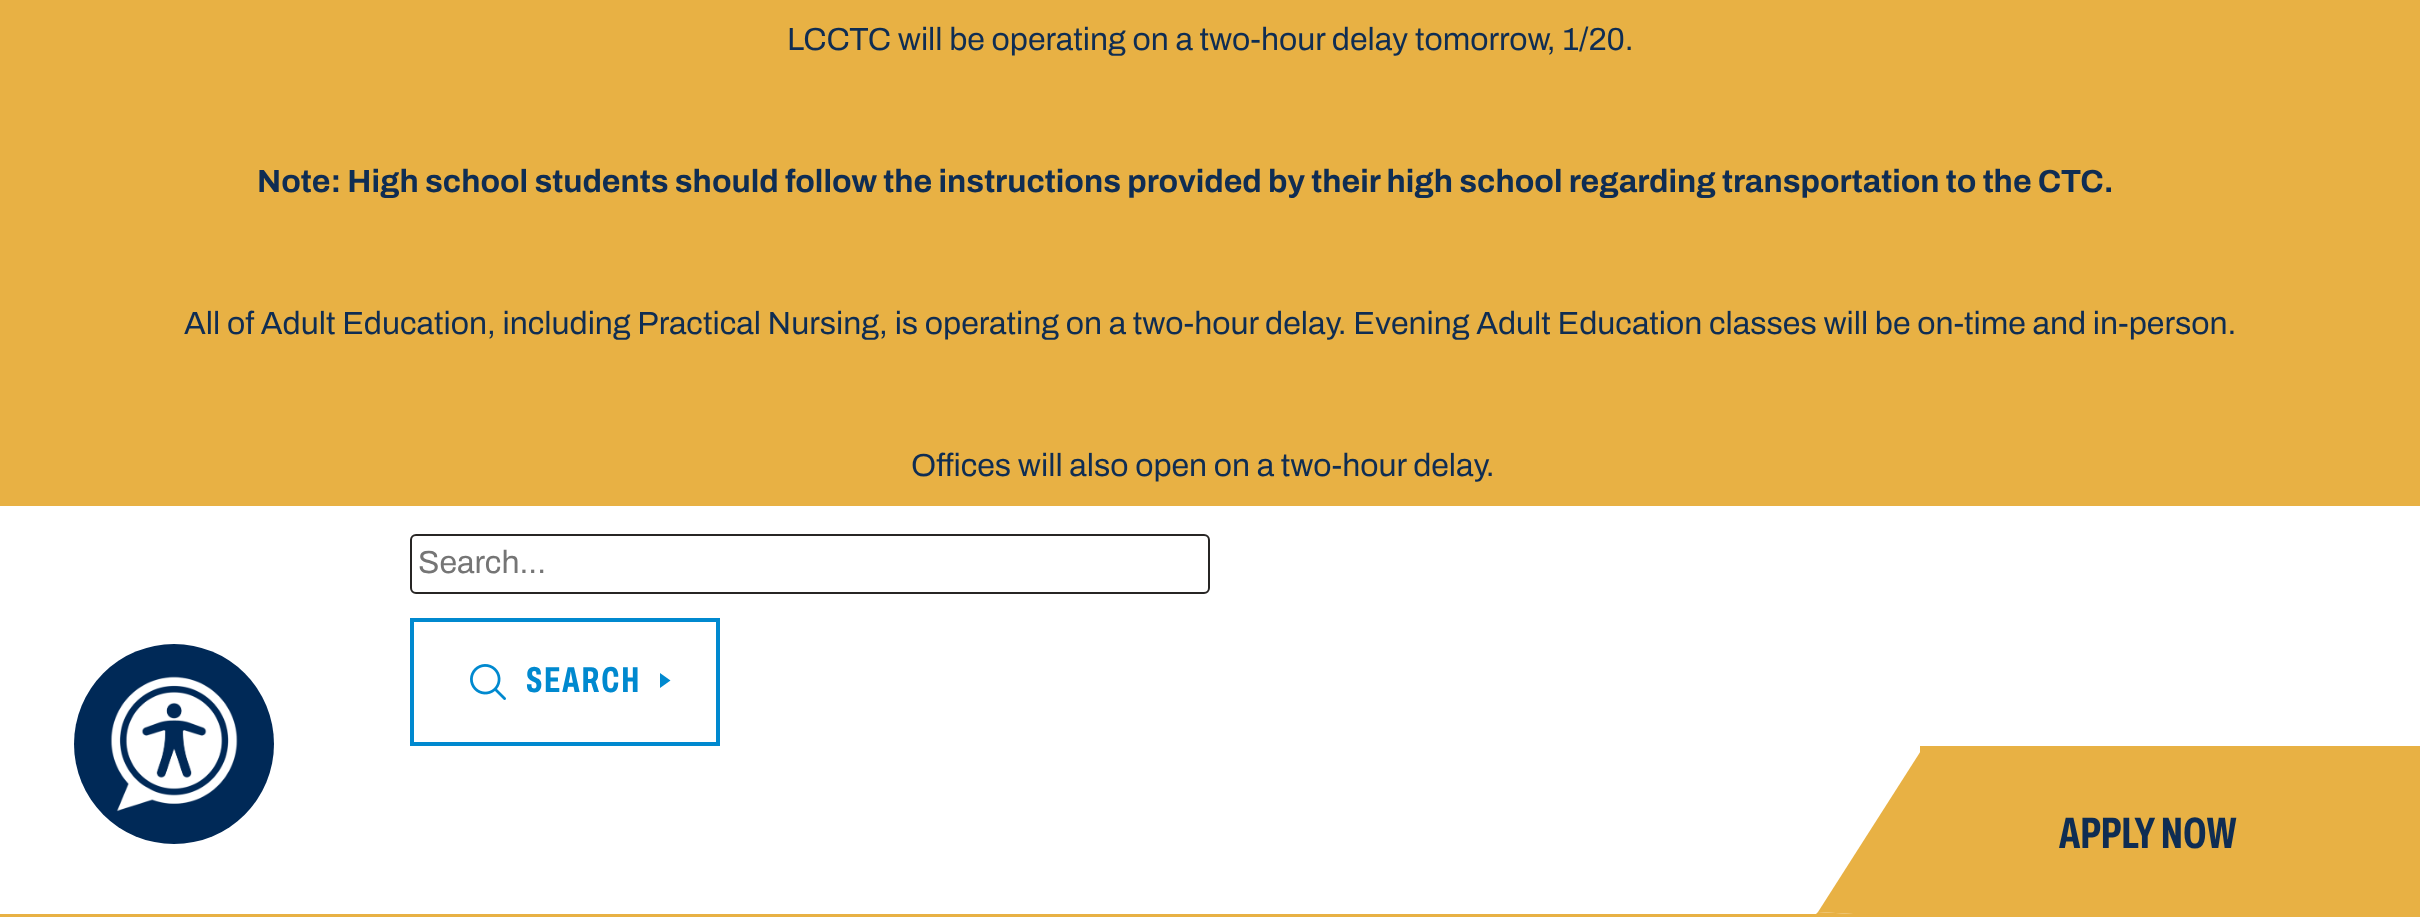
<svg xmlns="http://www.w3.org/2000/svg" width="2420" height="917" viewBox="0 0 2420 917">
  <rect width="100%" height="100%" fill="#ffffff"/>
  <circle cx="174" cy="744" r="100" fill="#002957"/>
  <image x="110" y="676" width="128" height="136" href="img1.png"/>
  <rect x="0" y="0" width="2420" height="506" fill="#e8b144"/>
  <text x="787" y="50" font-family="Archivo" font-size="32" fill="#0f2d53">LCCTC will be operating on a two-hour delay tomorrow, 1/20.</text>
  <text x="257" y="192" font-family="Archivo" font-size="32" font-weight="bold" fill="#0f2d53">Note: High school students should follow the instructions provided by their high school regarding transportation to the CTC.</text>
  <text x="184" y="334" font-family="Archivo" font-size="32" fill="#0f2d53">All of Adult Education, including Practical Nursing, is operating on a two-hour delay. Evening Adult Education classes will be on-time and in-person.</text>
  <text x="911" y="476" font-family="Archivo" font-size="32" fill="#0f2d53">Offices will also open on a two-hour delay.</text>
  <rect x="411" y="535" width="798" height="58" rx="5" fill="none" stroke="#272524" stroke-width="2"/>
  <text x="418" y="573" font-family="Archivo" font-size="32" fill="#757575">Search...</text>
  <rect x="412" y="620" width="306" height="124" fill="none" stroke="#0089cf" stroke-width="4"/>
  <image x="470" y="664" width="36" height="36" href="img2.png"/>
  <text x="526" y="692" font-family="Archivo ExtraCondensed" font-size="36" font-weight="bold" letter-spacing="2" fill="#0089cf">SEARCH</text>
  <path d="M670.5 680.5L660 688V673Z" fill="#0089cf"/>
  <rect x="1920" y="746" width="500" height="171" fill="#e8b144"/>
  <rect x="0" y="914" width="1907" height="3" fill="#e8b144"/>
  <path d="M1924 746V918L1818 912Z" fill="#e8b144"/>
  <path d="M1924 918H1812L1818 912Z" fill="#e8b144"/>
  <text x="2059" y="848" font-family="Archivo ExtraCondensed" font-size="44" font-weight="bold" fill="#0f2d53">APPLY NOW</text>
</svg>
